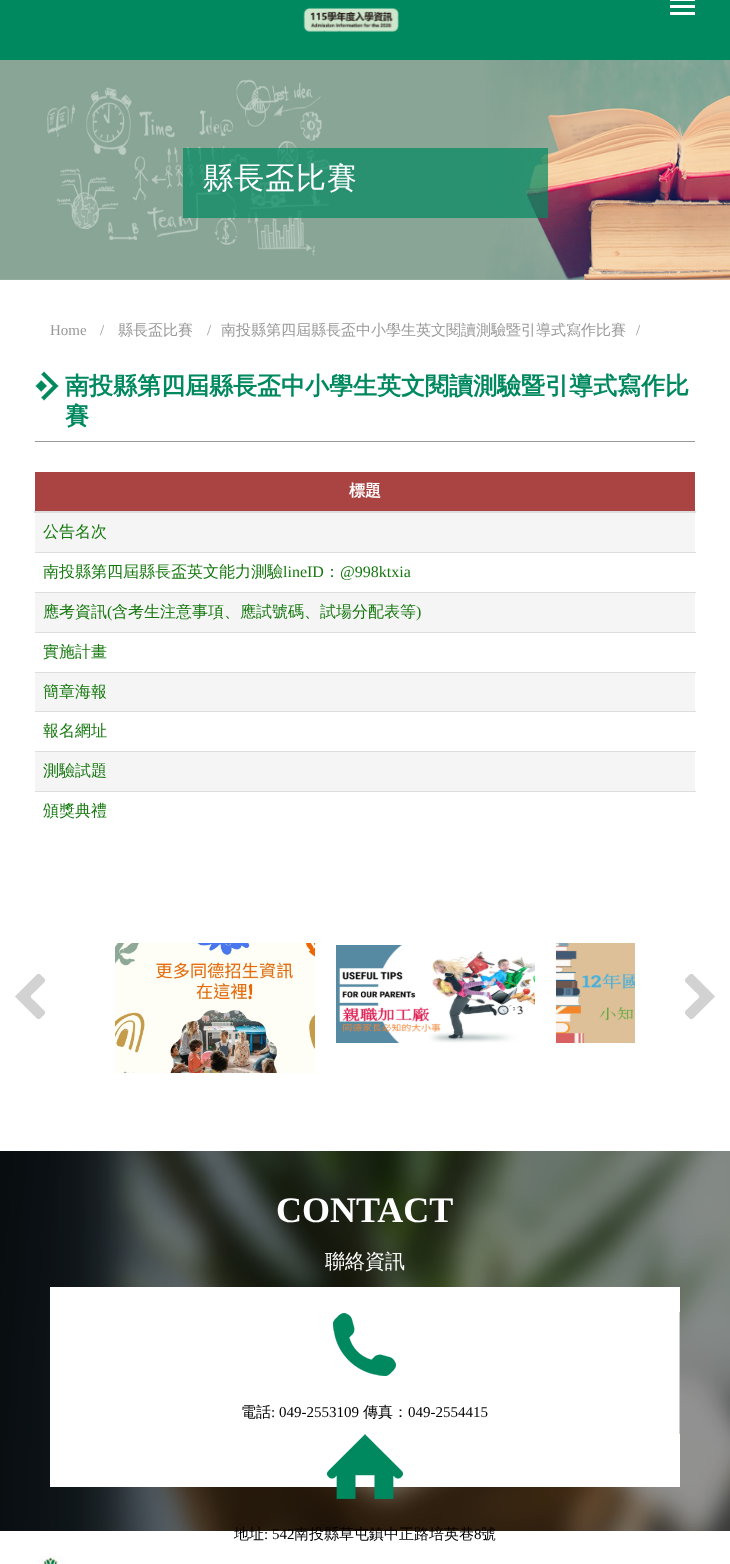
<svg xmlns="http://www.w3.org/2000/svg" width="730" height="1564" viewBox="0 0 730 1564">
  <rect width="100%" height="100%" fill="#ffffff"/>
  <rect x="0" y="0" width="730" height="60" fill="#00895f"/>
  <image x="303" y="7" width="96" height="25" href="img1.png"/>
  <rect x="670" y="0" width="25" height="1" fill="#ffffff"/>
  <rect x="670" y="5" width="25" height="3" fill="#ffffff"/>
  <rect x="670" y="12" width="25" height="3" fill="#ffffff"/>
  <image x="0" y="60" width="730" height="220" href="img2.png"/>
  <rect x="183" y="148" width="365" height="70" fill="#00895f" fill-opacity="0.7"/>
  <text x="203" y="188" font-family="WenQuanYi Zen Hei" font-size="30" font-weight="500" letter-spacing="1" fill="#ffffff">縣長盃比賽</text>
  <text x="50" y="335" font-family="Liberation Serif" font-size="15" fill="#999999">Home</text>
  <text x="100" y="335" font-family="Liberation Serif" font-size="15" fill="#999999">/</text>
  <text x="118" y="335" font-family="WenQuanYi Zen Hei" font-size="15" font-weight="500" fill="#999999">縣長盃比賽</text>
  <text x="207" y="335" font-family="Liberation Serif" font-size="15" fill="#999999">/</text>
  <text x="221" y="335" font-family="WenQuanYi Zen Hei" font-size="15" font-weight="500" fill="#999999">南投縣第四屆縣長盃中小學生英文閱讀測驗暨引導式寫作比賽</text>
  <text x="636" y="335" font-family="Liberation Serif" font-size="15" fill="#999999">/</text>
  <image x="35" y="371" width="24" height="30" href="img3.png"/>
  <rect x="35" y="441" width="660" height="1" fill="#999999"/>
  <text x="65" y="394" font-family="WenQuanYi Zen Hei" font-size="24" font-weight="bold" fill="#00895f">南投縣第四屆縣長盃中小學生英文閱讀測驗暨引導式寫作比</text>
  <text x="65" y="424" font-family="WenQuanYi Zen Hei" font-size="24" font-weight="bold" fill="#00895f">賽</text>
  <rect x="35" y="472" width="660" height="39" fill="#a94442"/>
  <rect x="34" y="511" width="662" height="2" fill="#dddddd"/>
  <text x="349" y="496" font-family="WenQuanYi Zen Hei" font-size="16" font-weight="bold" fill="#ffffff">標題</text>
  <rect x="35" y="513" width="660" height="39" fill="#f5f5f5"/>
  <text x="43" y="537" font-family="WenQuanYi Zen Hei" font-size="16" font-weight="500" fill="#15780e">公告名次</text>
  <rect x="35" y="552" width="661" height="1" fill="#dddddd"/>
  <text x="43" y="577" font-family="WenQuanYi Zen Hei" font-size="16" font-weight="500" fill="#15780e">南投縣第四屆縣長盃英文能力測驗</text>
  <text x="283" y="577" font-family="Liberation Serif" font-size="16" fill="#15780e">lineID</text>
  <text x="324" y="577" font-family="WenQuanYi Zen Hei" font-size="16" font-weight="500" fill="#15780e">：</text>
  <text x="340" y="577" font-family="Liberation Serif" font-size="16" fill="#15780e">@998ktxia</text>
  <rect x="35" y="593" width="660" height="39" fill="#f5f5f5"/>
  <rect x="35" y="592" width="661" height="1" fill="#dddddd"/>
  <text x="43" y="617" font-family="WenQuanYi Zen Hei" font-size="16" font-weight="500" fill="#15780e">應考資訊</text>
  <text x="107" y="617" font-family="Liberation Serif" font-size="16" fill="#15780e">(</text>
  <text x="112" y="617" font-family="WenQuanYi Zen Hei" font-size="16" font-weight="500" fill="#15780e">含考生注意事項、應試號碼、試場分配表等</text>
  <text x="416" y="617" font-family="Liberation Serif" font-size="16" fill="#15780e">)</text>
  <rect x="35" y="632" width="661" height="1" fill="#dddddd"/>
  <text x="43" y="657" font-family="WenQuanYi Zen Hei" font-size="16" font-weight="500" fill="#15780e">實施計畫</text>
  <rect x="35" y="673" width="660" height="38" fill="#f5f5f5"/>
  <rect x="35" y="672" width="661" height="1" fill="#dddddd"/>
  <text x="43" y="697" font-family="WenQuanYi Zen Hei" font-size="16" font-weight="500" fill="#15780e">簡章海報</text>
  <rect x="35" y="711" width="661" height="1" fill="#dddddd"/>
  <text x="43" y="736" font-family="WenQuanYi Zen Hei" font-size="16" font-weight="500" fill="#15780e">報名網址</text>
  <rect x="35" y="752" width="660" height="39" fill="#f5f5f5"/>
  <rect x="35" y="751" width="661" height="1" fill="#dddddd"/>
  <text x="43" y="776" font-family="WenQuanYi Zen Hei" font-size="16" font-weight="500" fill="#15780e">測驗試題</text>
  <rect x="35" y="791" width="661" height="1" fill="#dddddd"/>
  <text x="43" y="816" font-family="WenQuanYi Zen Hei" font-size="16" font-weight="500" fill="#15780e">頒獎典禮</text>
  <image x="15" y="974" width="30" height="45" href="img4.png"/>
  <image x="115" y="943" width="200" height="130" href="img5.png"/>
  <image x="336" y="945" width="199" height="98" href="img6.png"/>
  <image x="555" y="943" width="80" height="100" href="img7.png"/>
  <image x="685" y="974" width="30" height="45" href="img8.png"/>
  <image x="0" y="1151" width="730" height="380" href="img9.png"/>
  <text x="276" y="1222" font-family="Liberation Serif" font-size="36" font-weight="bold" fill="#ffffff">CONTACT</text>
  <text x="325" y="1268" font-family="WenQuanYi Zen Hei" font-size="20" font-weight="500" fill="#ffffff">聯絡資訊</text>
  <rect x="50" y="1287" width="630" height="200" fill="#ffffff"/>
  <rect x="679" y="1312" width="1" height="122" fill="#cccccc"/>
  <image x="333" y="1313" width="63" height="63" href="img10.png"/>
  <text x="241" y="1417" font-family="WenQuanYi Zen Hei" font-size="15" font-weight="500" fill="#000000">電話</text>
  <text x="271" y="1417" font-family="Liberation Serif" font-size="15" fill="#000000">: 049-2553109</text>
  <text x="363" y="1417" font-family="WenQuanYi Zen Hei" font-size="15" font-weight="500" fill="#000000">傳真：</text>
  <text x="408" y="1417" font-family="Liberation Serif" font-size="15" fill="#000000">049-2554415</text>
  <image x="327" y="1434" width="76" height="65" href="img11.png"/>
  <text x="234" y="1539" font-family="WenQuanYi Zen Hei" font-size="15" font-weight="500" fill="#000000">地址</text>
  <text x="264" y="1539" font-family="Liberation Serif" font-size="15" fill="#000000">: 542</text>
  <text x="294" y="1539" font-family="WenQuanYi Zen Hei" font-size="15" font-weight="500" fill="#000000">南投縣草屯鎮中正路培英巷</text>
  <text x="474" y="1539" font-family="Liberation Serif" font-size="15" fill="#000000">8</text>
  <text x="481" y="1539" font-family="WenQuanYi Zen Hei" font-size="15" font-weight="500" fill="#000000">號</text>
  <image x="39" y="1556" width="24" height="8" href="img12.png"/>
</svg>
